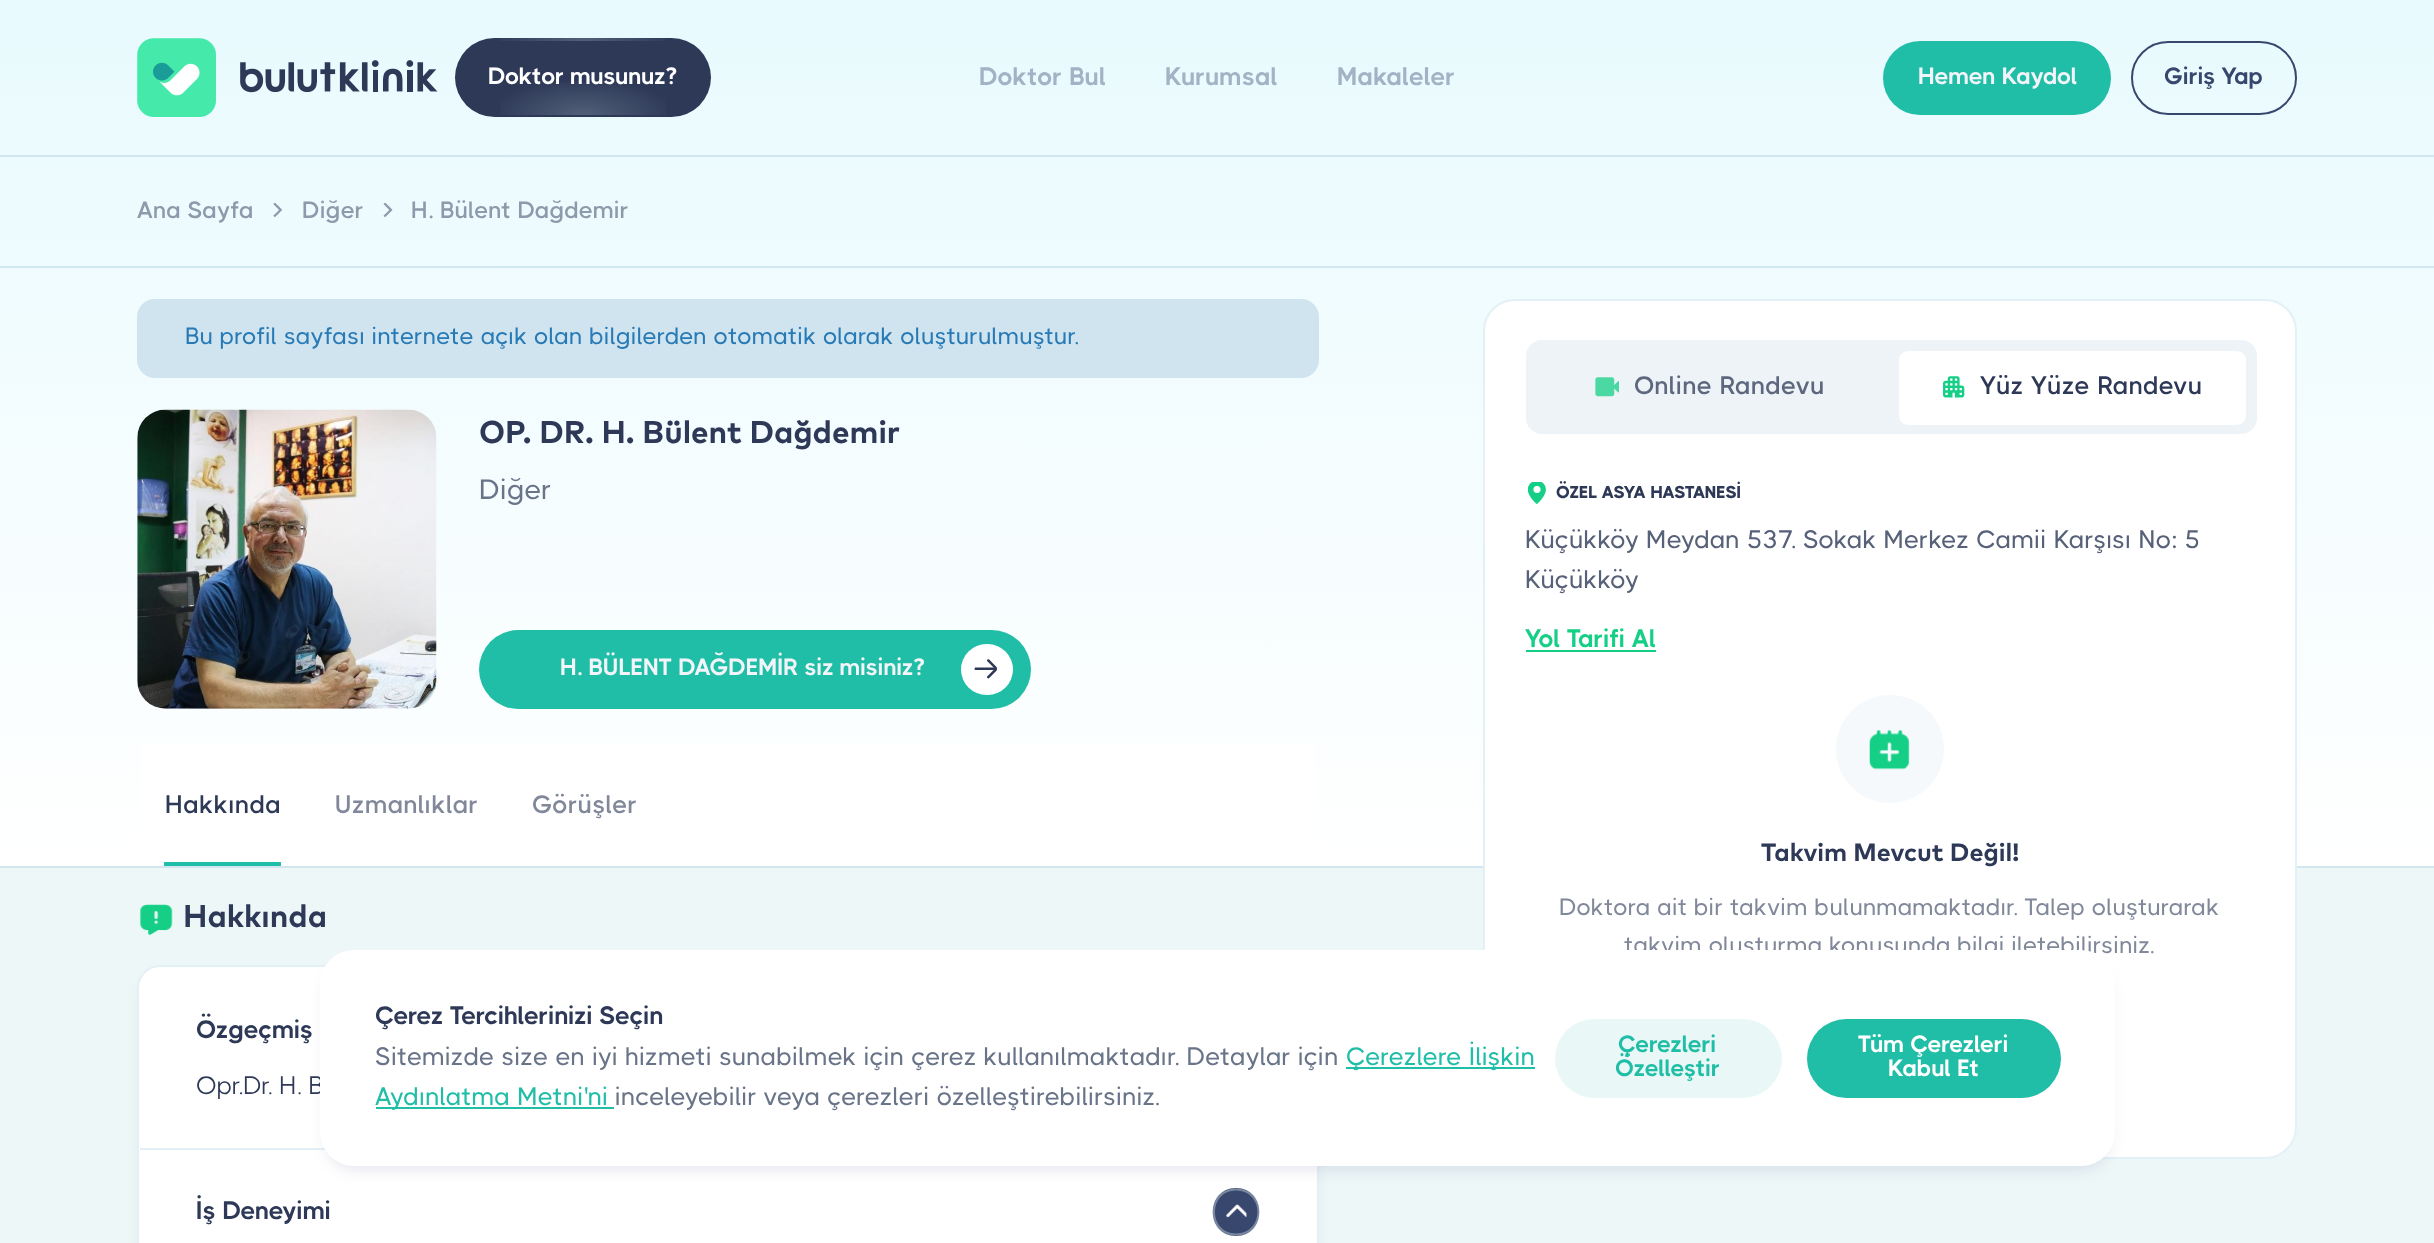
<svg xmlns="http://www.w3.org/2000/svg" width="2434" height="1243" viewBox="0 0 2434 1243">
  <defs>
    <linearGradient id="g1" gradientUnits="userSpaceOnUse" x1="1217" y1="0" x2="1217" y2="866"><stop offset="0" stop-color="#e8fafe"/><stop offset="1" stop-color="#ffffff"/></linearGradient>
    <radialGradient id="g2" gradientUnits="userSpaceOnUse" cx="0" cy="0" r="1" gradientTransform="matrix(93 0 0 37 583 41)"><stop offset="0" stop-color="#e7f9ff" stop-opacity="0.2"/><stop offset="1" stop-color="#e7f9ff" stop-opacity="0"/></radialGradient>
    <radialGradient id="g3" gradientUnits="userSpaceOnUse" cx="0" cy="0" r="1" gradientTransform="matrix(93 0 0 37 583 115)"><stop offset="0" stop-color="#e7f9ff" stop-opacity="0.2"/><stop offset="1" stop-color="#e7f9ff" stop-opacity="0"/></radialGradient>
    <filter id="blur1" x="-50%" y="-200%" width="200%" height="500%"><feGaussianBlur stdDeviation="9"/></filter>
  </defs>
  <rect width="100%" height="100%" fill="#edf7f8"/>
  <rect x="0" y="0" width="2434" height="866" fill="url(#g1)"/>
  <rect x="0" y="155" width="2434" height="2" fill="#d1e6ef"/>
  <image x="137" y="38" width="301" height="79" href="img1.png"/>
  <rect x="455" y="38" width="256" height="79" rx="39.5" fill="#2d3957"/>
  <rect x="500" y="38" width="166" height="3" fill="url(#g2)"/>
  <rect x="500" y="82" width="166" height="33" fill="url(#g3)"/>
  <text x="488" y="84" font-family="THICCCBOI" font-size="23.6" font-weight="bold" fill="#ffffff">Doktor musunuz?</text>
  <text x="979" y="85" font-family="THICCCBOI" font-size="25.2" font-weight="bold" letter-spacing="0.35" fill="#a3b2c4">Doktor Bul</text>
  <text x="1165" y="85" font-family="THICCCBOI" font-size="25.2" font-weight="bold" letter-spacing="0.35" fill="#a3b2c4">Kurumsal</text>
  <text x="1337" y="85" font-family="THICCCBOI" font-size="25.2" font-weight="bold" letter-spacing="0.35" fill="#a3b2c4">Makaleler</text>
  <rect x="1883" y="41" width="228" height="74" rx="37" fill="#20bda7"/>
  <text x="1918" y="84" font-family="THICCCBOI" font-size="23.6" font-weight="bold" fill="#f1f4f8">Hemen Kaydol</text>
  <rect x="2132" y="42" width="164" height="72" rx="36" fill="none" stroke="#38476d" stroke-width="2"/>
  <text x="2164" y="84" font-family="THICCCBOI" font-size="23.6" font-weight="bold" fill="#38476d">Giriş Yap</text>
  <rect x="0" y="866" width="2434" height="2" fill="#d1e6ef"/>
  <rect x="0" y="266" width="2434" height="2" fill="#d1e6ef"/>
  <text x="137" y="218" font-family="THICCCBOI" font-size="23.6" font-weight="600" letter-spacing="0.3" fill="#8d9aab">Ana Sayfa</text>
  <image x="273" y="202" width="9" height="16" href="img2.png"/>
  <text x="302" y="218" font-family="THICCCBOI" font-size="23.6" font-weight="600" letter-spacing="0.3" fill="#8d9aab">Diğer</text>
  <image x="383" y="202" width="10" height="16" href="img3.png"/>
  <text x="411" y="218" font-family="THICCCBOI" font-size="23.6" font-weight="600" letter-spacing="0.3" fill="#8d9aab">H. Bülent Dağdemir</text>
  <rect x="137" y="299" width="1182" height="79" rx="18" fill="#cfe4ef"/>
  <text x="185" y="344" font-family="THICCCBOI" font-size="23.6" font-weight="500" letter-spacing="0.35" fill="#277ab6">Bu profil sayfası internete açık olan bilgilerden otomatik olarak oluşturulmuştur.</text>
  <image x="137" y="409" width="300" height="300" href="img4.png"/>
  <text x="479" y="443" font-family="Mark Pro" font-size="31.5" font-weight="bold" fill="#2d3957">OP. DR. H. Bülent Dağdemir</text>
  <text x="479" y="499" font-family="THICCCBOI" font-size="28" font-weight="500" letter-spacing="0.35" fill="#697489">Diğer</text>
  <rect x="479" y="630" width="552" height="79" rx="39.5" fill="#20bda7"/>
  <text x="560" y="675" font-family="THICCCBOI" font-size="23.6" font-weight="bold" fill="#f1f4f8">H. BÜLENT DAĞDEMİR siz misiniz?</text>
  <rect x="961" y="644" width="52" height="51" rx="25.5" fill="#ffffff"/>
  <image x="974" y="659" width="23" height="20" href="img5.png"/>
  <rect x="1483" y="299" width="814" height="860" rx="32" fill="#ffffff"/>
  <rect x="1484" y="300" width="812" height="858" rx="31" fill="none" stroke="#d1e6ef" stroke-opacity="0.6" stroke-width="2"/>
  <rect x="1526" y="340" width="731" height="94" rx="16" fill="#edf3f7"/>
  <image x="1595" y="377" width="24" height="20" href="img6.png"/>
  <text x="1634" y="394" font-family="THICCCBOI" font-size="25.2" font-weight="600" letter-spacing="0.6" fill="#5d687f">Online Randevu</text>
  <rect x="1899" y="351" width="347" height="74" rx="9" fill="#ffffff"/>
  <image x="1943" y="376" width="22" height="22" href="img7.png"/>
  <text x="1980" y="394" font-family="THICCCBOI" font-size="25.2" font-weight="600" letter-spacing="0.6" fill="#2d3957">Yüz Yüze Randevu</text>
  <image x="1528" y="482" width="18" height="23" href="img8.png"/>
  <text x="1556" y="498" font-family="THICCCBOI" font-size="17.25" font-weight="800" fill="#2d3957">ÖZEL ASYA HASTANESİ</text>
  <text x="1525" y="548" font-family="THICCCBOI" font-size="25.2" font-weight="500" letter-spacing="0.35" fill="#576179">Küçükköy Meydan 537. Sokak Merkez Camii Karşısı No: 5</text>
  <text x="1525" y="588" font-family="THICCCBOI" font-size="25.2" font-weight="500" letter-spacing="0.35" fill="#576179">Küçükköy</text>
  <text x="1525" y="647" font-family="THICCCBOI" font-size="25.2" font-weight="bold" fill="#15cf86">Yol Tarifi Al</text>
  <rect x="1526" y="650" width="130" height="2" fill="#15cf86"/>
  <circle cx="1890" cy="749" r="54" fill="#f6f9fb"/>
  <image x="1869" y="730" width="41" height="40" href="img9.png"/>
  <text x="1761" y="861" font-family="Mark Pro" font-size="25.2" font-weight="bold" fill="#2d3957">Takvim Mevcut Değil!</text>
  <text x="1559" y="915" font-family="THICCCBOI" font-size="23.6" font-weight="500" letter-spacing="0.35" fill="#81889a">Doktora ait bir takvim bulunmamaktadır. Talep oluşturarak</text>
  <text x="1624" y="953" font-family="THICCCBOI" font-size="23.6" font-weight="500" letter-spacing="0.35" fill="#81889a">takvim oluşturma konusunda bilgi iletebilirsiniz.</text>
  <path d="M140 745H1316V843C1316 855.5 1305.5 866 1293 866H163C150.5 866 140 855.5 140 843Z" fill="#ffffff"/>
  <text x="165" y="813" font-family="THICCCBOI" font-size="25.2" font-weight="600" letter-spacing="0.6" fill="#2d3957">Hakkında</text>
  <text x="335" y="813" font-family="THICCCBOI" font-size="25.2" font-weight="600" letter-spacing="0.6" fill="#81889a">Uzmanlıklar</text>
  <text x="532" y="813" font-family="THICCCBOI" font-size="25.2" font-weight="600" letter-spacing="0.6" fill="#81889a">Görüşler</text>
  <rect x="164" y="862" width="117" height="4" fill="#20bda7"/>
  <image x="140" y="904" width="33" height="32" href="img10.png"/>
  <text x="183" y="927" font-family="Mark Pro" font-size="31.5" font-weight="bold" fill="#2d3957">Hakkında</text>
  <rect x="146" y="983" width="1164" height="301" rx="14" fill="#2d3957" fill-opacity="0.15" filter="url(#blur1)"/>
  <rect x="137" y="965" width="1182" height="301" rx="23" fill="#ffffff"/>
  <rect x="138" y="966" width="1180" height="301" rx="22" fill="none" stroke="#d1e6ef" stroke-opacity="0.6" stroke-width="2"/>
  <text x="196" y="1038" font-family="THICCCBOI" font-size="25.2" font-weight="bold" fill="#2d3957">Özgeçmiş</text>
  <text x="196" y="1094" font-family="THICCCBOI" font-size="25.2" fill="#2d3957">Opr.Dr. H. B</text>
  <rect x="140" y="1148" width="186" height="2" fill="#e3f0f5"/>
  <text x="196" y="1219" font-family="THICCCBOI" font-size="25.2" font-weight="bold" fill="#2d3957">İş Deneyimi</text>
  <path d="M1236 1236C1267 1236 1267 1188 1236 1188C1205 1188 1205 1236 1236 1236Z" fill="#38476d"/>
  <path d="M1236 1234.5C1266 1234.5 1266 1189.5 1236 1189.5C1206.5 1189.5 1206.5 1234.5 1236 1234.5Z" fill="none" stroke="#d9e5e9" stroke-opacity="0.4" stroke-width="2.2"/>
  <image x="1226" y="1204" width="21" height="14" href="img11.png"/>
  <rect x="329" y="968" width="1777" height="198" rx="25" fill="#2d3957" fill-opacity="0.15" filter="url(#blur1)"/>
  <rect x="320" y="950" width="1795" height="216" rx="34" fill="#ffffff"/>
  <text x="375" y="1024" font-family="THICCCBOI" font-size="25.2" font-weight="bold" fill="#2d3957">Çerez Tercihlerinizi Seçin</text>
  <text x="375" y="1065" font-family="THICCCBOI" font-size="25.2" font-weight="500" letter-spacing="0.35" fill="#697489">Sitemizde size en iyi hizmeti sunabilmek için çerez kullanılmaktadır. Detaylar için</text>
  <rect x="1346" y="1067" width="189" height="2" fill="#20bda7"/>
  <text x="1346" y="1065" font-family="THICCCBOI" font-size="25.2" font-weight="500" letter-spacing="0.35" fill="#20bda7">Çerezlere İlişkin</text>
  <rect x="376" y="1107" width="238" height="2" fill="#20bda7"/>
  <text x="375" y="1105" font-family="THICCCBOI" font-size="25.2" font-weight="500" letter-spacing="0.35" fill="#20bda7">Aydınlatma Metni'ni</text>
  <text x="615" y="1105" font-family="THICCCBOI" font-size="25.2" font-weight="500" letter-spacing="0.35" fill="#697489">inceleyebilir veya çerezleri özelleştirebilirsiniz.</text>
  <rect x="1555" y="1019" width="227" height="79" rx="39.5" fill="#e9f8f6"/>
  <text x="1618" y="1052" font-family="THICCCBOI" font-size="23.6" font-weight="bold" fill="#20bda7">Çerezleri</text>
  <text x="1615" y="1076" font-family="THICCCBOI" font-size="23.6" font-weight="bold" fill="#20bda7">Özelleştir</text>
  <rect x="1807" y="1019" width="254" height="79" rx="39.5" fill="#20bda7"/>
  <text x="1858" y="1052" font-family="THICCCBOI" font-size="23.6" font-weight="bold" fill="#ffffff">Tüm Çerezleri</text>
  <text x="1888" y="1076" font-family="THICCCBOI" font-size="23.6" font-weight="bold" fill="#ffffff">Kabul Et</text>
</svg>
